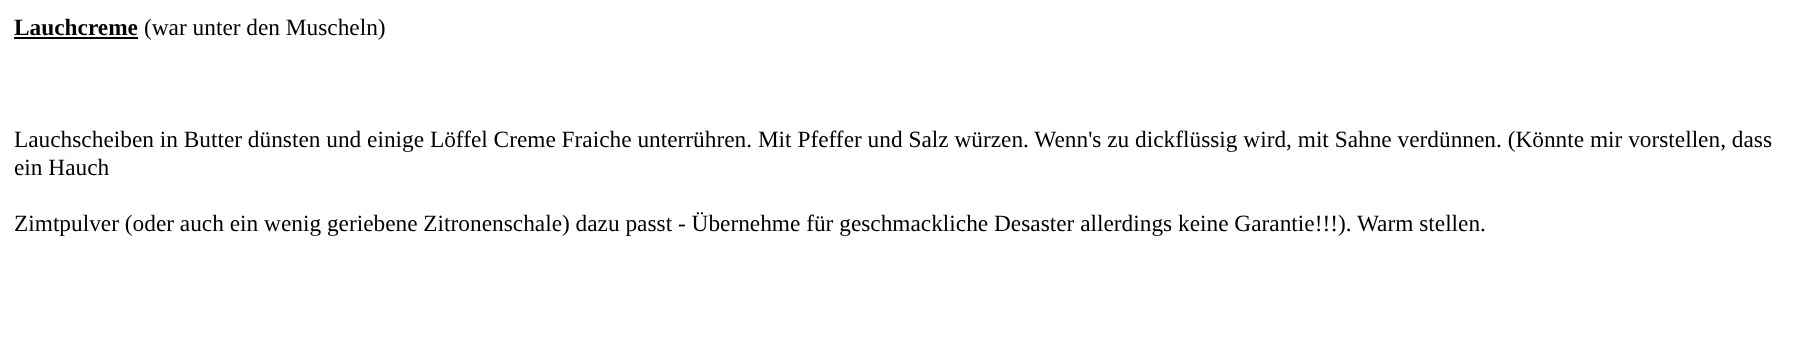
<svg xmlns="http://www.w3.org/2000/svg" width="1795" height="348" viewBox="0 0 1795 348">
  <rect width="100%" height="100%" fill="#ffffff"/>
  <text x="14" y="35" font-family="Liberation Serif" font-size="23.33" font-weight="bold" fill="#000000">Lauchcreme</text>
  <rect x="14" y="37" width="124" height="2" fill="#000000"/>
  <text x="144" y="35" font-family="Liberation Serif" font-size="23.33" fill="#000000">(war unter den Muscheln)</text>
  <text x="14" y="147" font-family="Liberation Serif" font-size="23.33" fill="#000000">Lauchscheiben in Butter dünsten und einige Löffel Creme Fraiche unterrühren. Mit Pfeffer und Salz würzen. Wenn's zu dickflüssig wird, mit Sahne verdünnen. (Könnte mir vorstellen, dass</text>
  <text x="14" y="175" font-family="Liberation Serif" font-size="23.33" fill="#000000">ein Hauch</text>
  <text x="14" y="231" font-family="Liberation Serif" font-size="23.33" fill="#000000">Zimtpulver (oder auch ein wenig geriebene Zitronenschale) dazu passt - Übernehme für geschmackliche Desaster allerdings keine Garantie!!!). Warm stellen.</text>
</svg>
